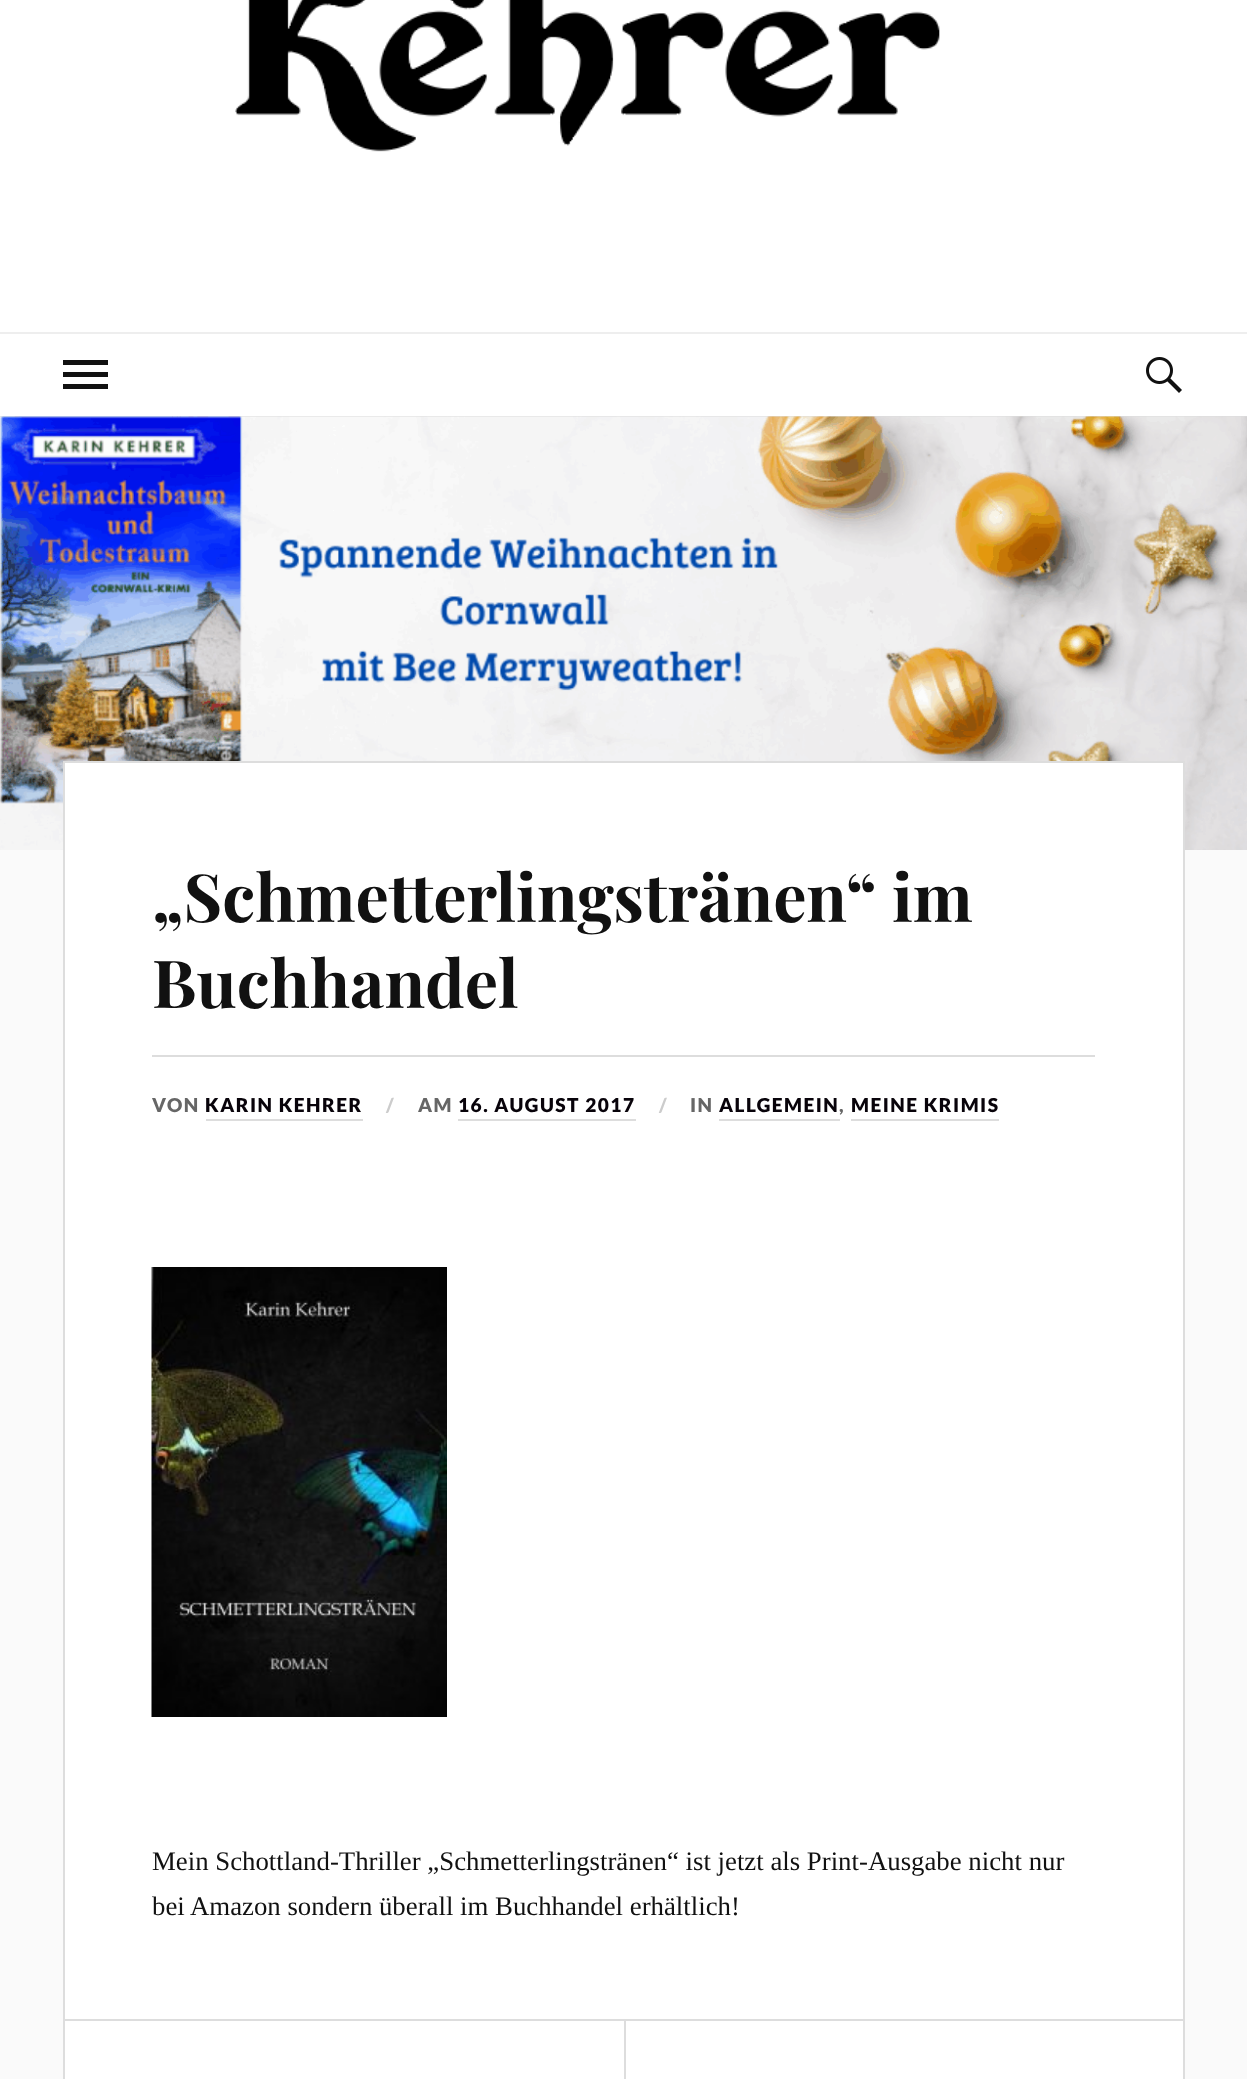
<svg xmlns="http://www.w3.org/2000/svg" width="1247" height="2079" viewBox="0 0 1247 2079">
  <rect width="100%" height="100%" fill="#fafafa"/>
  <rect x="0" y="0" width="1247" height="332" fill="#ffffff"/>
  <image x="235" y="0" width="705" height="152" href="img1.png"/>
  <rect x="0" y="334" width="1247" height="82" fill="#ffffff"/>
  <rect x="0" y="332" width="1247" height="2" fill="#eeeeee"/>
  <rect x="63" y="360" width="45" height="5" fill="#111111"/>
  <rect x="63" y="372" width="45" height="5" fill="#111111"/>
  <rect x="63" y="384" width="45" height="5" fill="#111111"/>
  <image x="1146" y="357" width="36" height="36" href="img2.png"/>
  <rect x="0" y="416" width="1247" height="1" fill="#dddddd"/>
  <image x="0" y="416" width="1247" height="434" href="img3.png"/>
  <rect x="64" y="762" width="1120" height="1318" fill="#ffffff" stroke="#dddddd" stroke-width="2"/>
  <text x="152" y="922" font-family="Playfair Display" font-size="66.25" font-weight="bold" fill="#111111">„Schmetterlingstränen“ im</text>
  <text x="152" y="1008" font-family="Playfair Display" font-size="66.25" font-weight="bold" fill="#111111">Buchhandel</text>
  <rect x="152" y="1055" width="943" height="2" fill="#dddddd"/>
  <text x="152" y="1112" font-family="Lato" font-size="19.1" font-weight="900" letter-spacing="1.5" fill="#666666">VON</text>
  <text x="205" y="1112" font-family="Lato" font-size="19.1" font-weight="900" letter-spacing="1.5" fill="#08030a">KARIN KEHRER</text>
  <rect x="206" y="1119" width="157" height="2" fill="#dddddd"/>
  <text x="386" y="1112" font-family="Lato" font-size="19.1" font-weight="900" letter-spacing="1.5" fill="#cccccc">/</text>
  <text x="418" y="1112" font-family="Lato" font-size="19.1" font-weight="900" letter-spacing="1.5" fill="#666666">AM</text>
  <text x="458" y="1112" font-family="Lato" font-size="19.1" font-weight="900" letter-spacing="1.5" fill="#08030a">16. AUGUST 2017</text>
  <rect x="458" y="1119" width="178" height="2" fill="#dddddd"/>
  <text x="659" y="1112" font-family="Lato" font-size="19.1" font-weight="900" letter-spacing="1.5" fill="#cccccc">/</text>
  <text x="690" y="1112" font-family="Lato" font-size="19.1" font-weight="900" letter-spacing="1.5" fill="#666666">IN</text>
  <text x="719" y="1112" font-family="Lato" font-size="19.1" font-weight="900" letter-spacing="1.5" fill="#08030a">ALLGEMEIN</text>
  <rect x="719" y="1119" width="121" height="2" fill="#dddddd"/>
  <text x="839" y="1112" font-family="Lato" font-size="19.1" font-weight="900" letter-spacing="1.5" fill="#666666">,</text>
  <text x="851" y="1112" font-family="Lato" font-size="19.1" font-weight="900" letter-spacing="1.5" fill="#08030a">MEINE KRIMIS</text>
  <rect x="851" y="1119" width="148" height="2" fill="#dddddd"/>
  <image x="151" y="1267" width="296" height="450" href="img4.png"/>
  <text x="152" y="1870" font-family="Liberation Serif" font-size="26.8" fill="#111111">Mein Schottland-Thriller „Schmetterlingstränen“ ist jetzt als Print-Ausgabe nicht nur</text>
  <text x="152" y="1915" font-family="Liberation Serif" font-size="26.8" fill="#111111">bei Amazon sondern überall im Buchhandel erhältlich!</text>
  <rect x="65" y="2019" width="1119" height="2" fill="#dddddd"/>
  <rect x="624" y="2021" width="2" height="58" fill="#dddddd"/>
</svg>
